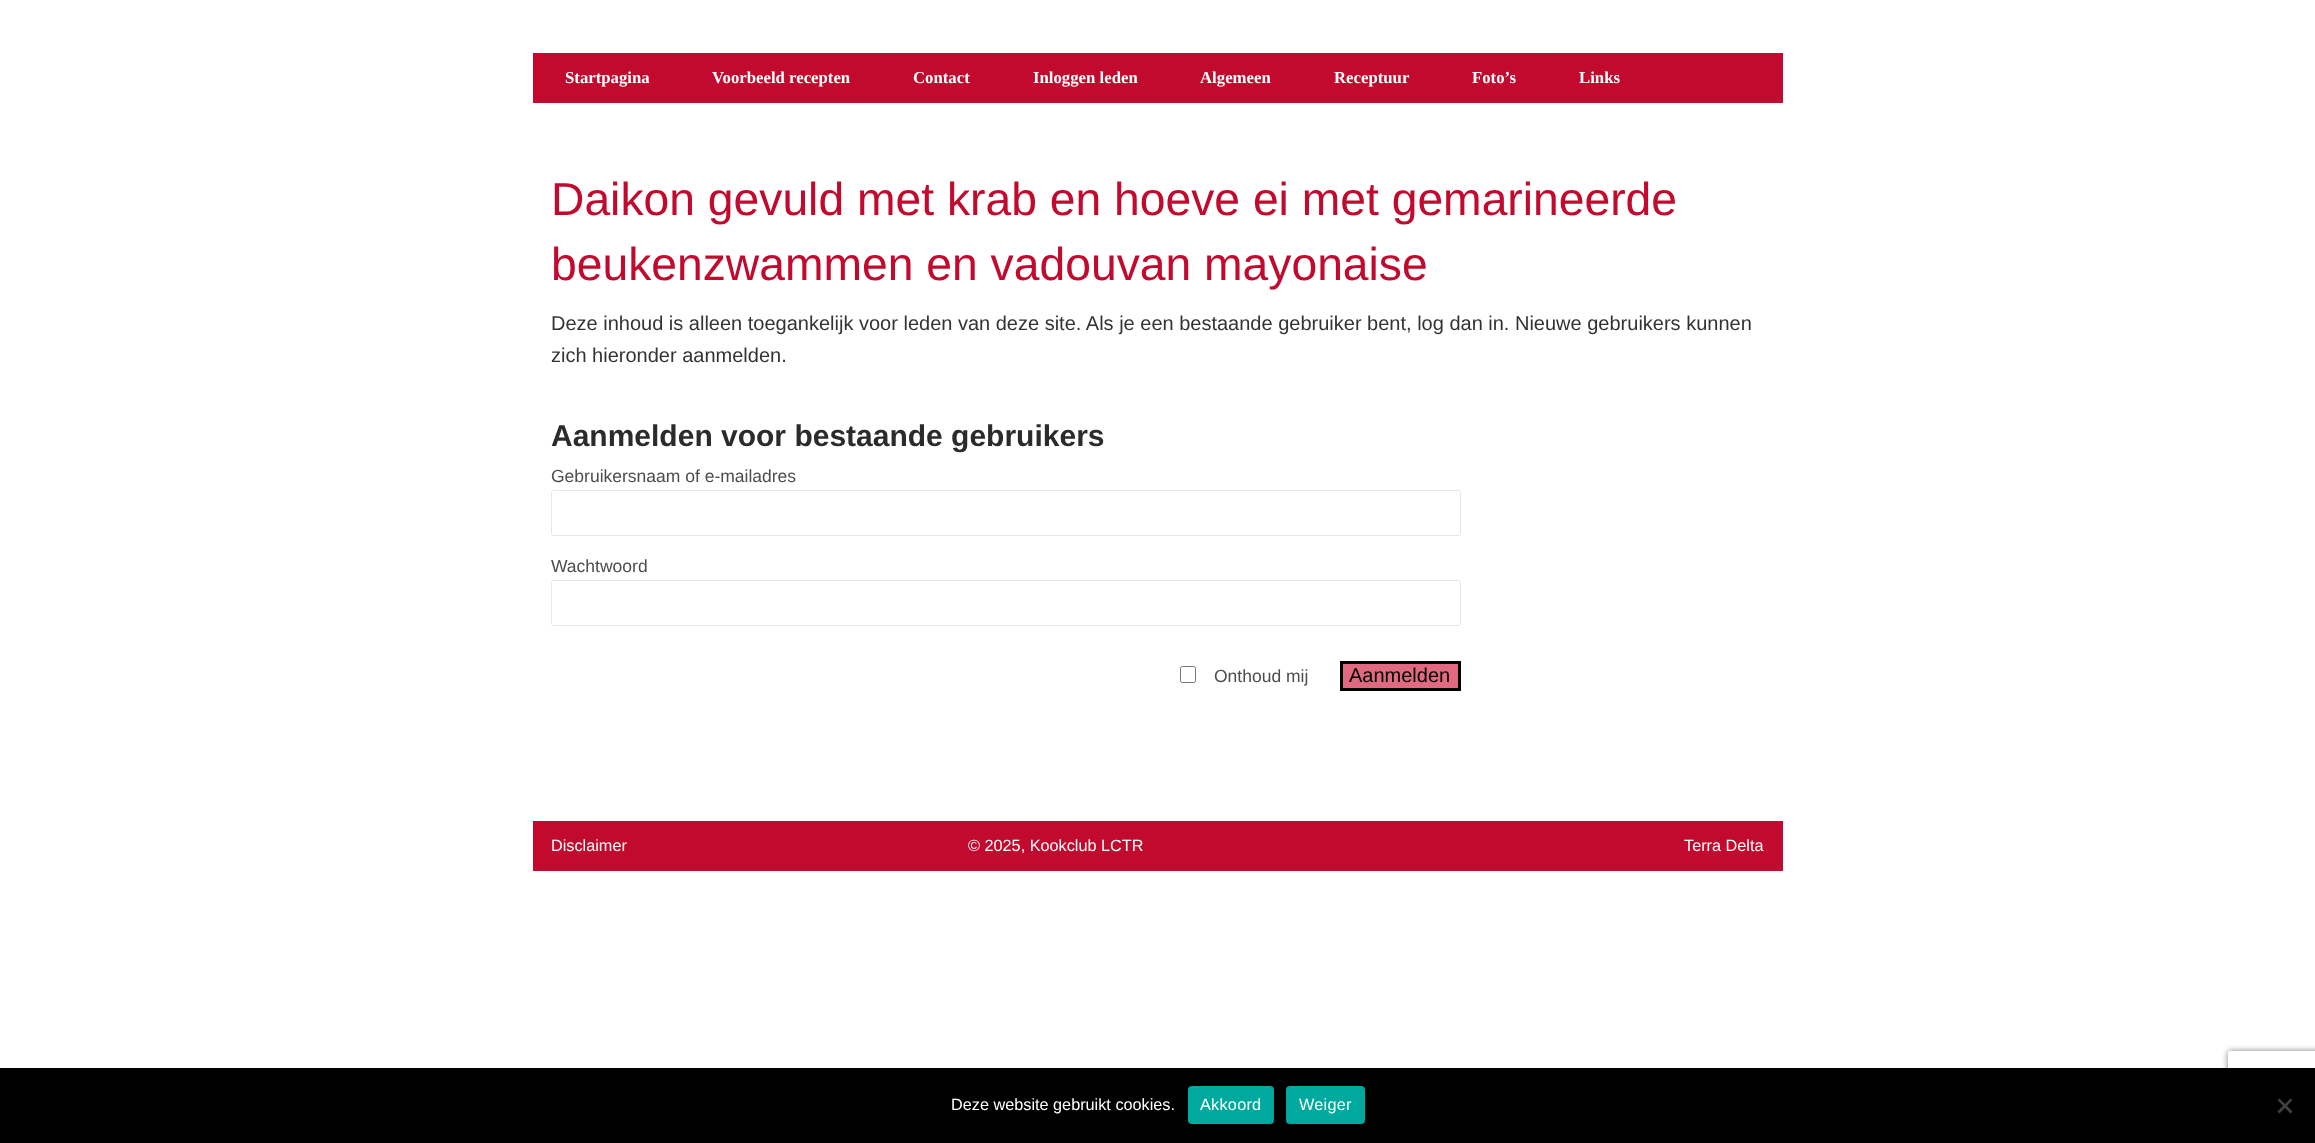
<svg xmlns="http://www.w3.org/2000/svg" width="2315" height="1143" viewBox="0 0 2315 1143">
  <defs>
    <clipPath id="clip1"><path d="M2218 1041H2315V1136H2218ZM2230.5 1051H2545.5C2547 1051 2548 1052 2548 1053.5V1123.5C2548 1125 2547 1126 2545.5 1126H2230.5C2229 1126 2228 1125 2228 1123.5V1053.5C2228 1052 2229 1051 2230.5 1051Z" clip-rule="evenodd"/></clipPath>
    <filter id="blur1" x="-50%" y="-200%" width="200%" height="500%"><feGaussianBlur stdDeviation="3"/></filter>
  </defs>
  <rect width="100%" height="100%" fill="#ffffff"/>
  <rect x="533" y="53" width="1250" height="50" fill="#c20a2e"/>
  <rect x="533" y="53" width="1" height="1" fill="#4e4e4e"/>
  <rect x="680" y="53" width="1" height="1" fill="#4e4e4e"/>
  <rect x="881" y="53" width="1" height="1" fill="#4e4e4e"/>
  <rect x="1000" y="53" width="1" height="1" fill="#4e4e4e"/>
  <rect x="1168" y="53" width="1" height="1" fill="#4e4e4e"/>
  <rect x="1301" y="53" width="1" height="1" fill="#4e4e4e"/>
  <rect x="1440" y="53" width="1" height="1" fill="#4e4e4e"/>
  <rect x="1546" y="53" width="1" height="1" fill="#4e4e4e"/>
  <text x="565" y="83" font-family="Liberation Serif" font-size="16.75" font-weight="bold" fill="#ffffff">Startpagina</text>
  <text x="712" y="83" font-family="Liberation Serif" font-size="16.75" font-weight="bold" fill="#ffffff">Voorbeeld recepten</text>
  <text x="913" y="83" font-family="Liberation Serif" font-size="16.75" font-weight="bold" fill="#ffffff">Contact</text>
  <text x="1033" y="83" font-family="Liberation Serif" font-size="16.75" font-weight="bold" fill="#ffffff">Inloggen leden</text>
  <text x="1200" y="83" font-family="Liberation Serif" font-size="16.75" font-weight="bold" fill="#ffffff">Algemeen</text>
  <text x="1334" y="83" font-family="Liberation Serif" font-size="16.75" font-weight="bold" fill="#ffffff">Receptuur</text>
  <text x="1472" y="83" font-family="Liberation Serif" font-size="16.75" font-weight="bold" fill="#ffffff">Foto’s</text>
  <text x="1579" y="83" font-family="Liberation Serif" font-size="16.75" font-weight="bold" fill="#ffffff">Links</text>
  <text x="551" y="215" font-family="Liberation Sans" font-size="46.25" fill="#c20a2e">Daikon gevuld met krab en hoeve ei met gemarineerde</text>
  <text x="551" y="280" font-family="Liberation Sans" font-size="46.25" fill="#c20a2e">beukenzwammen en vadouvan mayonaise</text>
  <text x="551" y="330" font-family="Liberation Sans" font-size="20" fill="#333333">Deze inhoud is alleen toegankelijk voor leden van deze site. Als je een bestaande gebruiker bent, log dan in. Nieuwe gebruikers kunnen</text>
  <text x="551" y="362" font-family="Liberation Sans" font-size="20" fill="#333333">zich hieronder aanmelden.</text>
  <text x="551" y="446" font-family="Liberation Sans" font-size="30" font-weight="bold" fill="#2b2b2b">Aanmelden voor bestaande gebruikers</text>
  <text x="551" y="482" font-family="Liberation Sans" font-size="17.5" fill="#4d4d4d">Gebruikersnaam of e-mailadres</text>
  <rect x="551.5" y="490.5" width="909" height="45" rx="2" fill="none" stroke="#e6e6e6"/>
  <text x="551" y="572" font-family="Liberation Sans" font-size="17.5" fill="#4d4d4d">Wachtwoord</text>
  <rect x="551.5" y="580.5" width="909" height="45" rx="2" fill="none" stroke="#e6e6e6"/>
  <rect x="1180.5" y="666.5" width="15" height="16" rx="2" fill="none" stroke="#767676"/>
  <text x="1214" y="682" font-family="Liberation Sans" font-size="17.5" fill="#4d4d4d">Onthoud mij</text>
  <rect x="1341.5" y="662.5" width="118" height="27" fill="#e16980" stroke="#000000" stroke-width="3"/>
  <text x="1349" y="682" font-family="Liberation Sans" font-size="20" fill="#000000">Aanmelden</text>
  <rect x="533" y="821" width="1250" height="50" fill="#c20a2e"/>
  <text x="551" y="851" font-family="Liberation Sans" font-size="16.25" fill="#ffffff">Disclaimer</text>
  <text x="968" y="851" font-family="Liberation Sans" font-size="16.25" fill="#ffffff">© 2025, Kookclub LCTR</text>
  <text x="1684" y="851" font-family="Liberation Sans" font-size="16.25" fill="#ffffff">Terra Delta</text>
  <g clip-path="url(#clip1)">
    <rect x="2228" y="1051" width="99" height="75" rx="2.5" fill="#808080" filter="url(#blur1)"/>
  </g>
  <rect x="0" y="1068" width="2315" height="75" fill="#000000"/>
  <text x="951" y="1110" font-family="Liberation Sans" font-size="16.25" fill="#ffffff">Deze website gebruikt cookies.</text>
  <rect x="1188" y="1086" width="86" height="38" rx="4" fill="#00a99d"/>
  <text x="1200" y="1110" font-family="Liberation Sans" font-size="16.25" letter-spacing="0.25" fill="#ffffff">Akkoord</text>
  <rect x="1286" y="1086" width="79" height="38" rx="4" fill="#00a99d"/>
  <text x="1299" y="1110" font-family="Liberation Sans" font-size="16.25" letter-spacing="0.25" fill="#ffffff">Weiger</text>
  <path d="M2290.5 1098.5L2292.5 1100L2279.5 1113.5L2277.5 1111.5Z" fill="#404040"/>
  <path d="M2277.5 1100L2279.5 1098.5L2292.5 1111.5L2290.5 1113.5Z" fill="#404040"/>
</svg>
